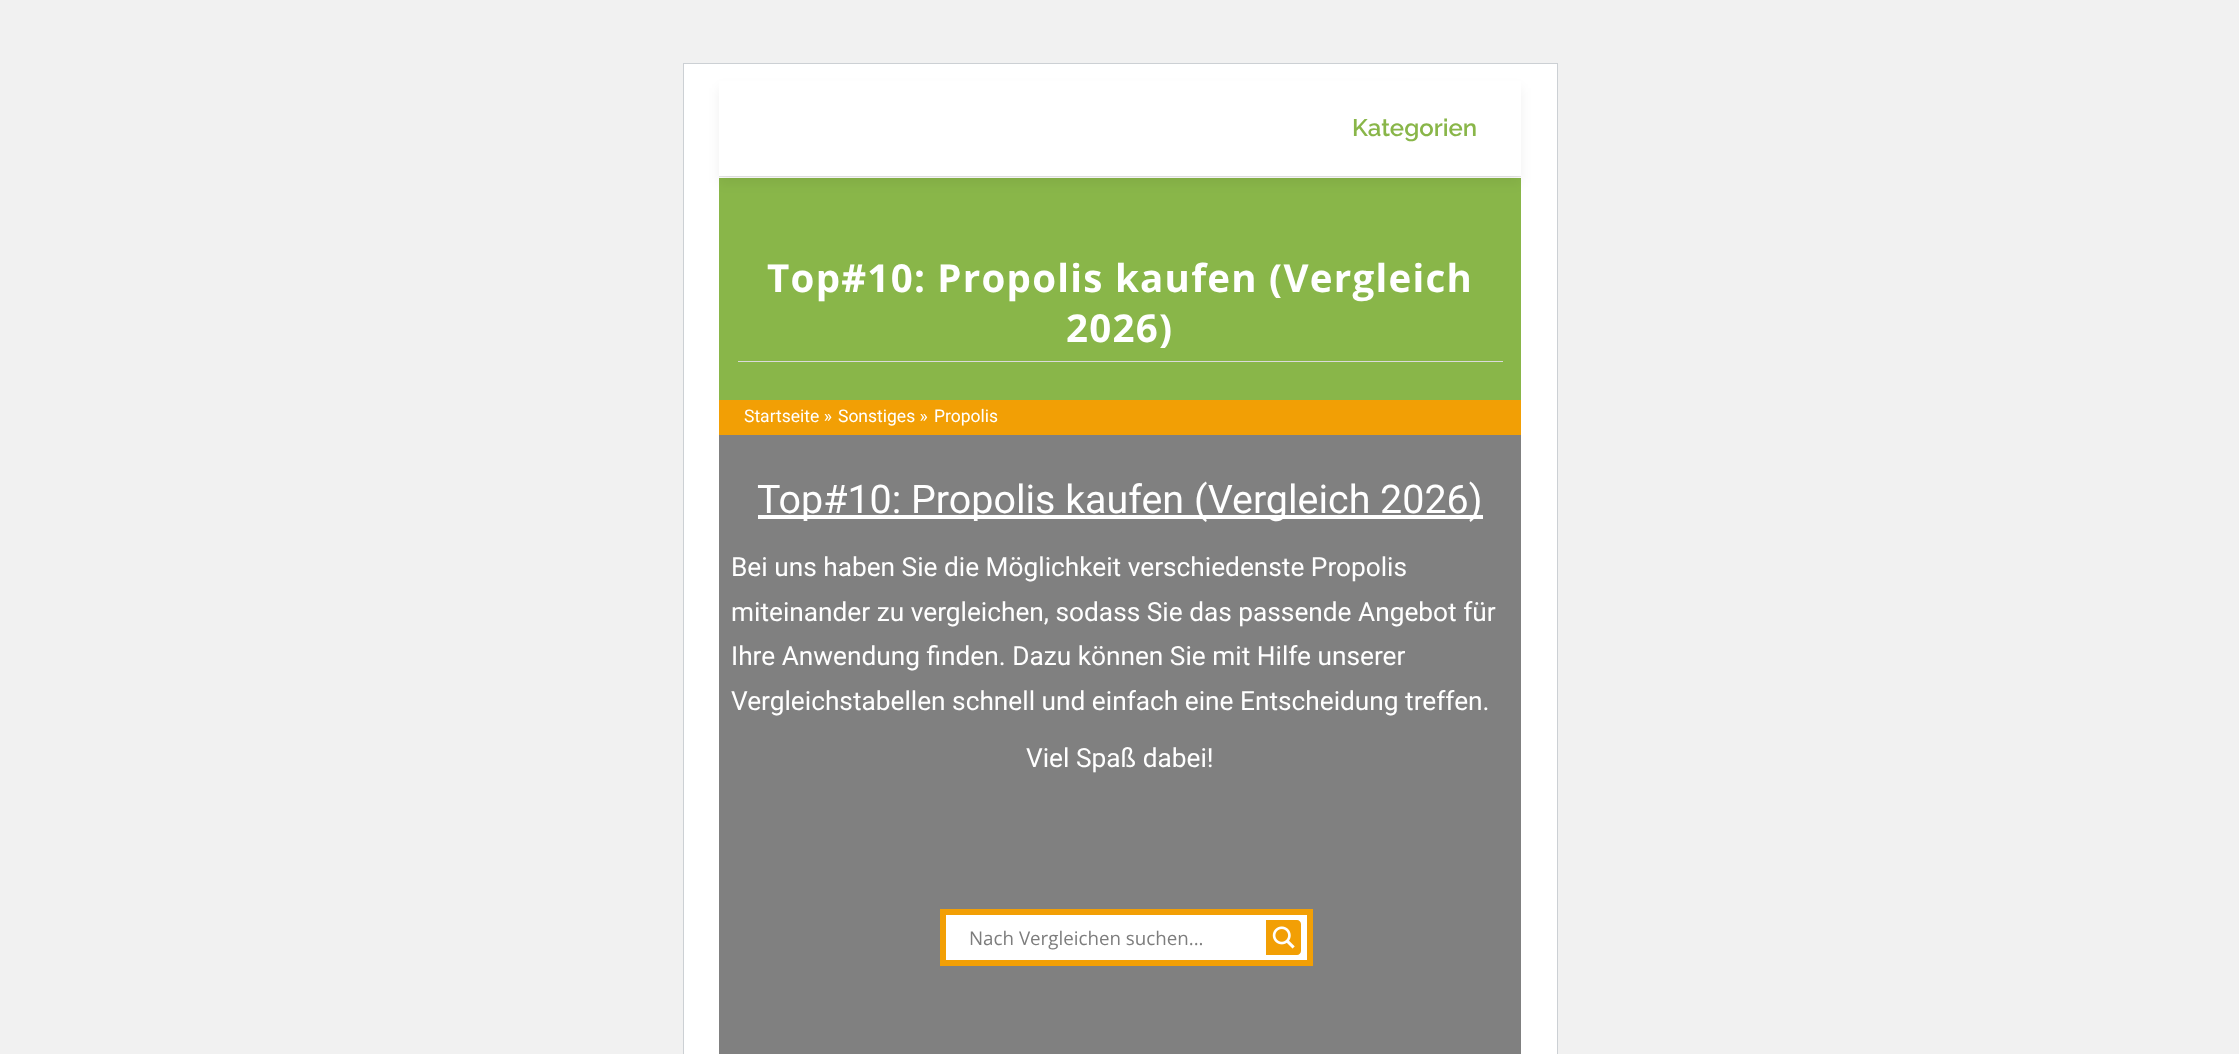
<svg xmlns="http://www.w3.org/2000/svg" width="2239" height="1054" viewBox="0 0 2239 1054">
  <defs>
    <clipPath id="clip1"><path d="M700 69H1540V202H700ZM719 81H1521V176H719Z" clip-rule="evenodd"/></clipPath>
    <filter id="blur1" x="-50%" y="-200%" width="200%" height="500%"><feGaussianBlur stdDeviation="6"/></filter>
  </defs>
  <rect width="100%" height="100%" fill="#f1f1f1"/>
  <rect x="683.5" y="63.5" width="874" height="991" fill="#ffffff" stroke="#ccd0d4"/>
  <rect x="719" y="176" width="802" height="1" fill="#e9e9e9"/>
  <rect x="719" y="178" width="802" height="222" fill="#89b649"/>
  <g clip-path="url(#clip1)">
    <rect x="719" y="88" width="802" height="95" fill="#323232" fill-opacity="0.06" filter="url(#blur1)"/>
  </g>
  <text x="1352" y="136" font-family="Raleway" font-size="24" font-weight="600" fill="#89b649">Kategorien</text>
  <rect x="738" y="361" width="765" height="1" fill="#dadada"/>
  <text x="767" y="292" font-family="Open Sans" font-size="38.5" font-weight="bold" letter-spacing="1.25" fill="#ffffff">Top#10: Propolis kaufen (Vergleich</text>
  <text x="1066" y="342" font-family="Open Sans" font-size="38.5" font-weight="bold" letter-spacing="1.25" fill="#ffffff">2026)</text>
  <rect x="719" y="400" width="802" height="35" fill="#f29f05"/>
  <text x="744" y="422" font-family="Roboto" font-size="17.5" fill="#ffffff">Startseite »</text>
  <text x="838" y="422" font-family="Roboto" font-size="17.5" fill="#ffffff">Sonstiges »</text>
  <text x="934" y="422" font-family="Roboto" font-size="17.5" fill="#ffffff">Propolis</text>
  <rect x="719" y="435" width="802" height="619" fill="#808080"/>
  <rect x="758" y="515" width="725" height="4" fill="#ffffff"/>
  <text x="757" y="513" font-family="Roboto" font-size="39.4" fill="#ffffff">Top#10: Propolis kaufen (Vergleich 2026)</text>
  <text x="731" y="576" font-family="Roboto" font-size="26.25" fill="#ffffff">Bei uns haben Sie die Möglichkeit verschiedenste Propolis</text>
  <text x="731" y="621" font-family="Roboto" font-size="26.25" fill="#ffffff">miteinander zu vergleichen, sodass Sie das passende Angebot für</text>
  <text x="731" y="665" font-family="Roboto" font-size="26.25" fill="#ffffff">Ihre Anwendung finden. Dazu können Sie mit Hilfe unserer</text>
  <text x="731" y="710" font-family="Roboto" font-size="26.25" fill="#ffffff">Vergleichstabellen schnell und einfach eine Entscheidung treffen.</text>
  <text x="1026" y="767" font-family="Roboto" font-size="26.25" fill="#ffffff">Viel Spaß dabei!</text>
  <rect x="943" y="912" width="367" height="51" fill="#ffffff" stroke="#f29f05" stroke-width="6"/>
  <text x="969" y="945" font-family="Open Sans" font-size="18.75" fill="#7d7d7d">Nach Vergleichen suchen...</text>
  <path d="M1266 920H1297C1299 920 1301 922 1301 924V951C1301 953 1299 955 1297 955H1266Z" fill="#f29f05"/>
  <image x="1272" y="926" width="23" height="23" href="img1.png"/>
</svg>
